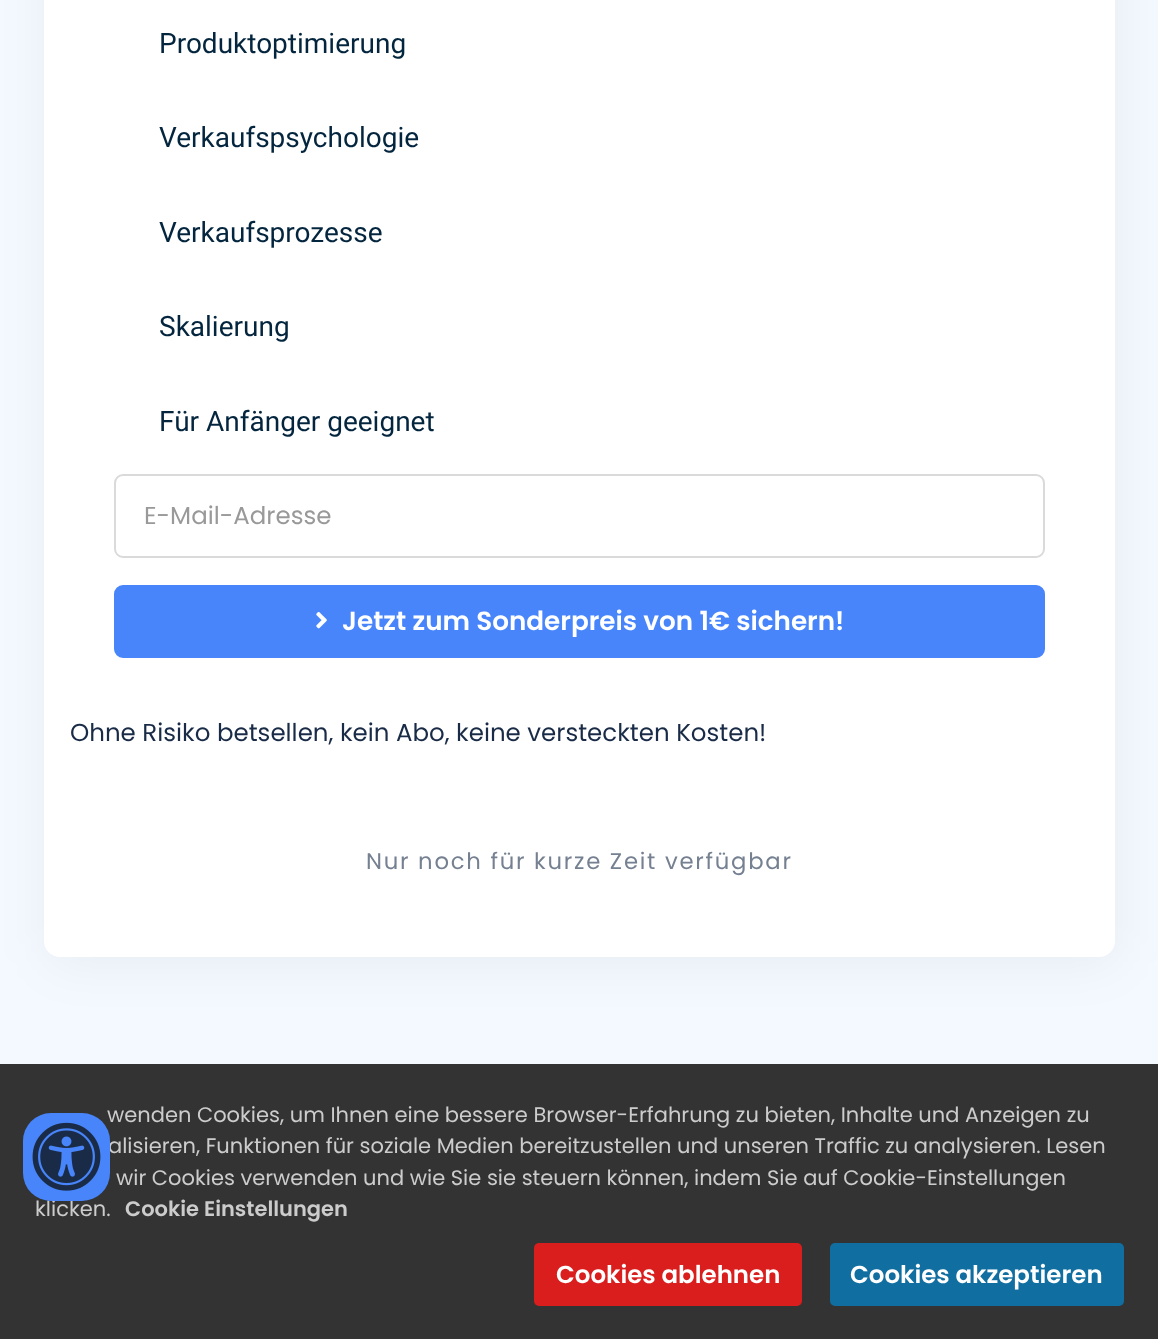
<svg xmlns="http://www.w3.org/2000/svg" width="1158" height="1339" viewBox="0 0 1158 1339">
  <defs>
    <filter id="blur1" x="-50%" y="-200%" width="200%" height="500%"><feGaussianBlur stdDeviation="26"/></filter>
  </defs>
  <rect width="100%" height="100%" fill="#f4f8ff"/>
  <rect x="47" y="-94" width="1071" height="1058" rx="16" fill="#000000" fill-opacity="0.05" filter="url(#blur1)"/>
  <rect x="44" y="-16" width="1071" height="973" rx="16" fill="#ffffff"/>
  <text x="159" y="53" font-family="Roboto" font-size="28" fill="#04253e">Produktoptimierung</text>
  <text x="159" y="147" font-family="Roboto" font-size="28" fill="#04253e">Verkaufspsychologie</text>
  <text x="159" y="242" font-family="Roboto" font-size="28" fill="#04253e">Verkaufsprozesse</text>
  <text x="159" y="336" font-family="Roboto" font-size="28" fill="#04253e">Skalierung</text>
  <text x="159" y="431" font-family="Roboto" font-size="28" fill="#04253e">Für Anfänger geeignet</text>
  <rect x="115" y="475" width="929" height="82" rx="8" fill="none" stroke="#dadada" stroke-width="2"/>
  <text x="144" y="524" font-family="Poppins" font-size="24.5" fill="#999999">E-Mail-Adresse</text>
  <rect x="115" y="586" width="929" height="71" rx="8" fill="#4885fb" stroke="#4885fb" stroke-width="2"/>
  <image x="316" y="612" width="11" height="17" href="img1.png"/>
  <text x="342" y="630" font-family="Poppins" font-size="26.25" font-weight="600" fill="#ffffff">Jetzt zum Sonderpreis von 1€ sichern!</text>
  <text x="70" y="741" font-family="Poppins" font-size="24.5" fill="#192b47">Ohne Risiko betsellen, kein Abo, keine versteckten Kosten!</text>
  <text x="366" y="869" font-family="Poppins" font-size="22.75" letter-spacing="1.75" fill="#758091">Nur noch für kurze Zeit verfügbar</text>
  <rect x="0" y="1064" width="1158" height="275" fill="#333333"/>
  <text x="107" y="1122" font-family="Poppins" font-size="21" fill="#cccccc">wenden Cookies, um Ihnen eine bessere Browser-Erfahrung zu bieten, Inhalte und Anzeigen zu</text>
  <text x="108" y="1153" font-family="Poppins" font-size="21" fill="#cccccc">alisieren, Funktionen für soziale Medien bereitzustellen und unseren Traffic zu analysieren. Lesen</text>
  <text x="116" y="1185" font-family="Poppins" font-size="21" fill="#cccccc">wir Cookies verwenden und wie Sie sie steuern können, indem Sie auf Cookie-Einstellungen</text>
  <text x="35" y="1216" font-family="Poppins" font-size="21" fill="#cccccc">klicken.</text>
  <text x="125" y="1216" font-family="Poppins" font-size="21" font-weight="600" fill="#cccccc">Cookie Einstellungen</text>
  <rect x="534" y="1243" width="268" height="63" rx="5" fill="#da1d1d"/>
  <text x="556" y="1283" font-family="Poppins" font-size="24.5" font-weight="600" fill="#ffffff">Cookies ablehnen</text>
  <rect x="830" y="1243" width="294" height="63" rx="5" fill="#116ea1"/>
  <text x="850" y="1283" font-family="Poppins" font-size="24.5" font-weight="600" fill="#ffffff">Cookies akzeptieren</text>
  <rect x="23" y="1113" width="87" height="88" rx="28" fill="#4885fb"/>
  <image x="32" y="1122" width="69" height="69" href="img2.png"/>
</svg>
